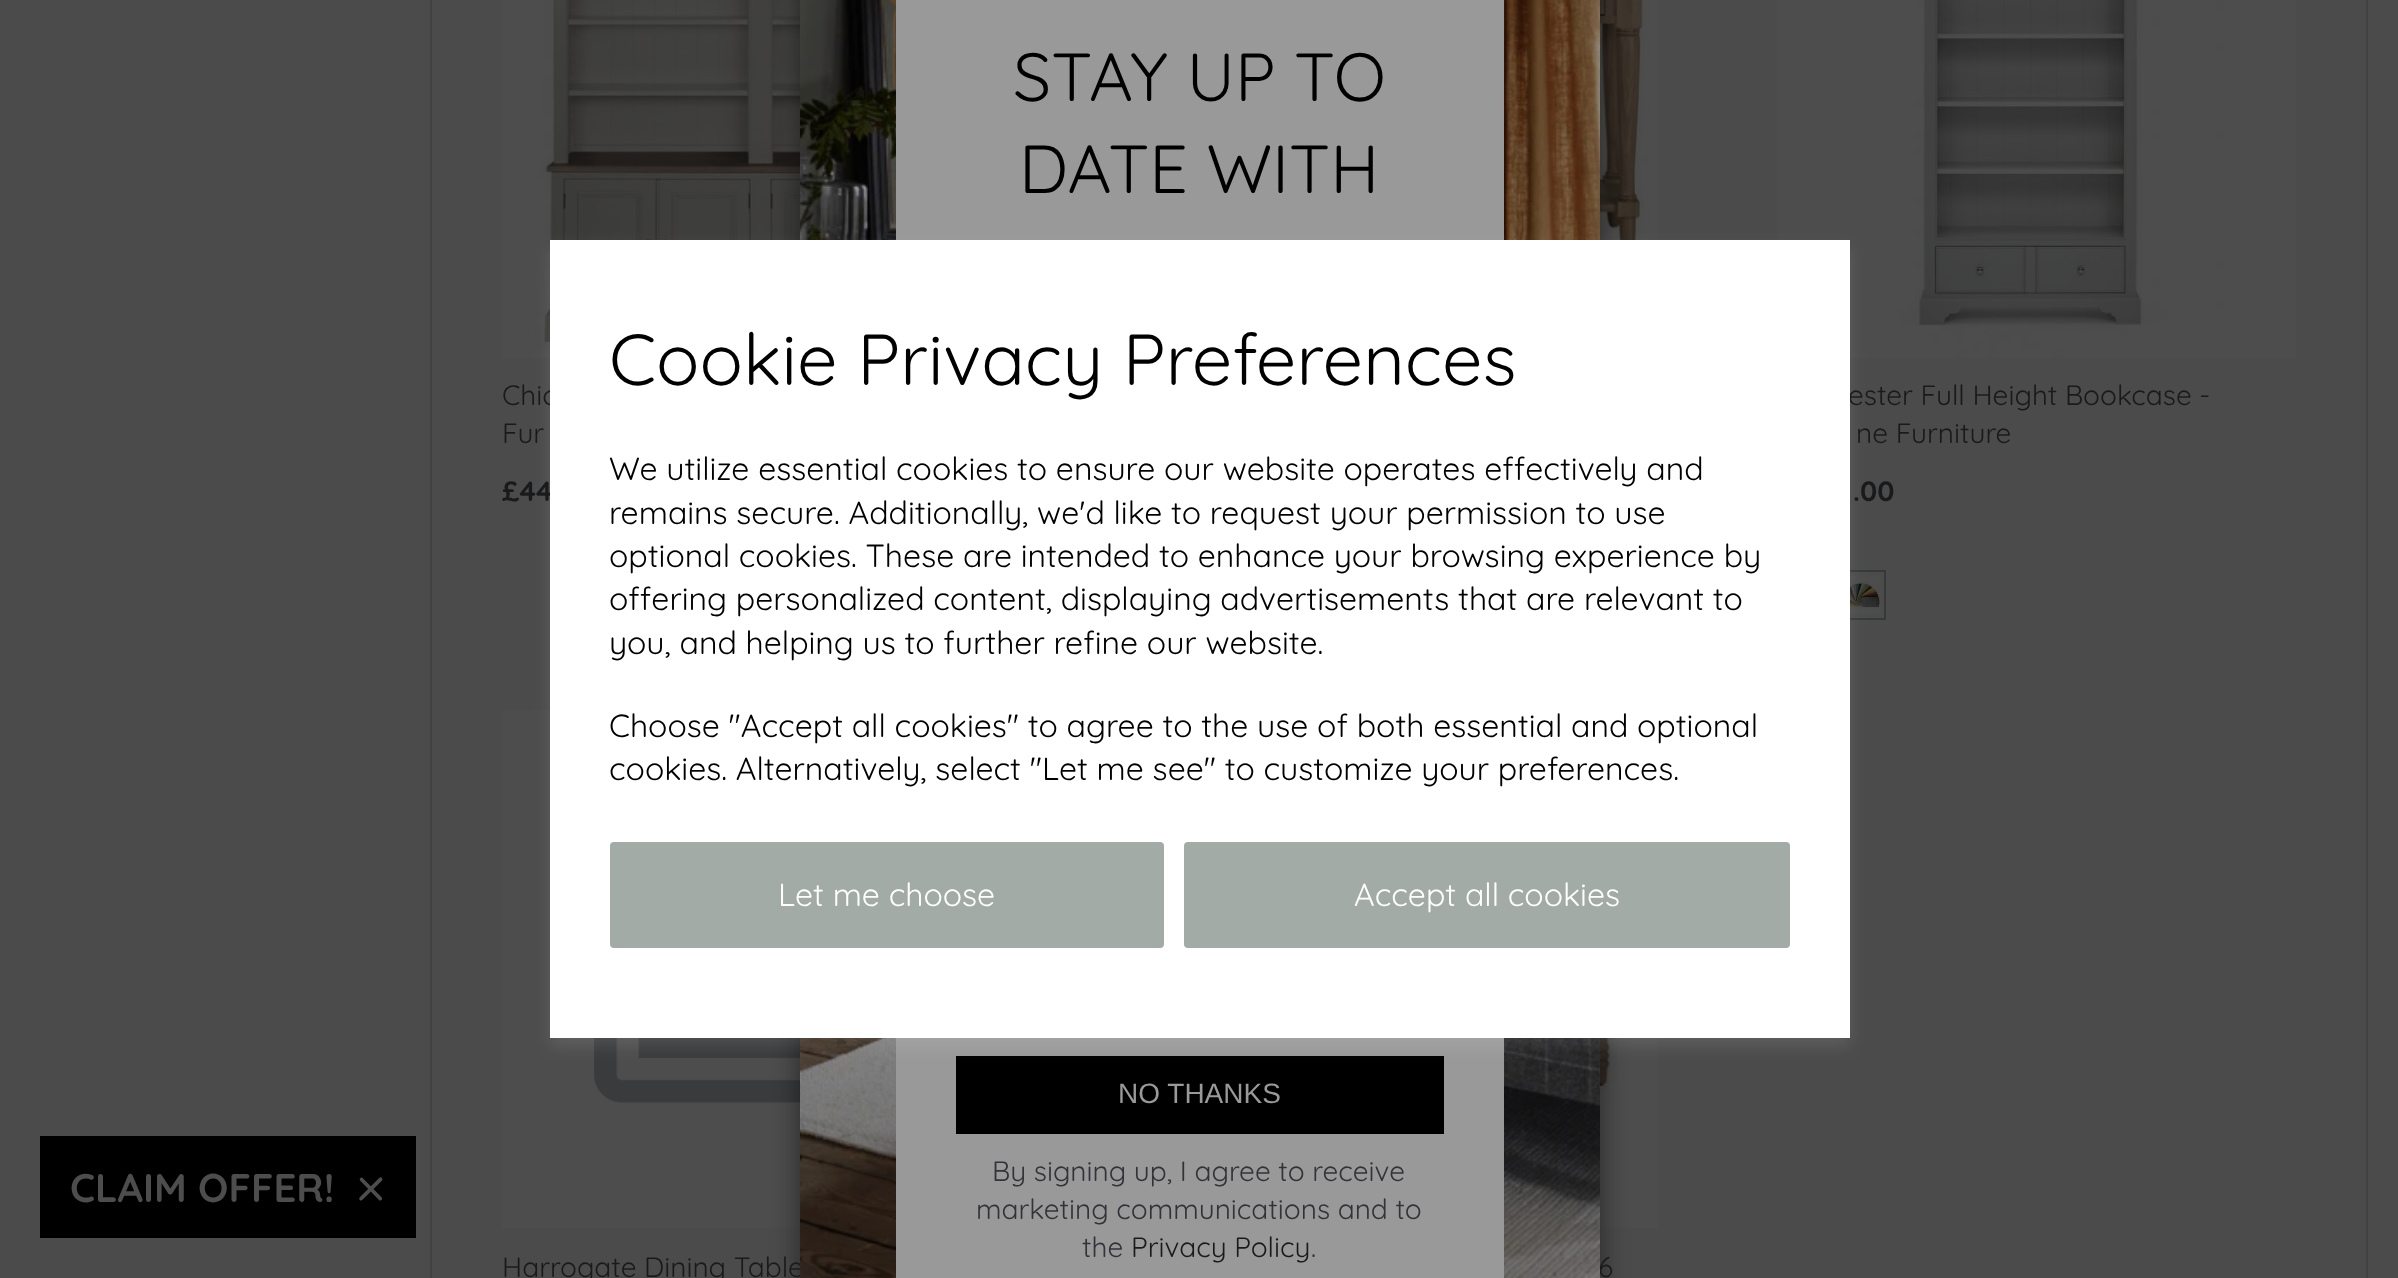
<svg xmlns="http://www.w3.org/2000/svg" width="2398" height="1278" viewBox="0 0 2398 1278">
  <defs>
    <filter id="blur1" x="-50%" y="-200%" width="200%" height="500%"><feGaussianBlur stdDeviation="15"/></filter>
    <filter id="blur2" x="-50%" y="-200%" width="200%" height="500%"><feGaussianBlur stdDeviation="8"/></filter>
  </defs>
  <rect width="100%" height="100%" fill="#4b4b4b"/>
  <rect x="431" y="-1" width="1936" height="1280" fill="none" stroke="#414143" stroke-width="2"/>
  <image x="1600" y="0" width="58" height="240" href="img2.png"/>
  <image x="502" y="0" width="298" height="358" href="img3.png"/>
  <image x="502" y="710" width="298" height="518" href="img6.png"/>
  <image x="1600" y="1038" width="58" height="190" href="img7.png"/>
  <rect x="800" y="-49" width="800" height="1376" rx="4" fill="#000000" fill-opacity="0.5" filter="url(#blur1)"/>
  <text x="502" y="1277" font-family="Quicksand" font-size="28" fill="#191a1c">Harrogate Dining Table</text>
  <text x="1598" y="1277" font-family="Quicksand" font-size="28" fill="#191a1c">6</text>
  <image x="800" y="0" width="800" height="1278" href="img1.png"/>
  <rect x="896" y="0" width="608" height="1278" fill="#999999"/>
  <text x="1013" y="101" font-family="Quicksand" font-size="68" fill="#000000">STAY UP TO</text>
  <text x="1019" y="193" font-family="Quicksand" font-size="68" fill="#000000">DATE WITH</text>
  <rect x="956" y="1056" width="488" height="78" fill="#000000"/>
  <text x="1118" y="1103" font-family="Liberation Sans" font-size="28" fill="#999999">NO THANKS</text>
  <text x="992" y="1181" font-family="Quicksand" font-size="28" fill="#313338">By signing up, I agree to receive</text>
  <text x="976" y="1219" font-family="Quicksand" font-size="28" fill="#313338">marketing communications and to</text>
  <text x="1082" y="1257" font-family="Quicksand" font-size="28" fill="#313338">the</text>
  <text x="1131" y="1257" font-family="Quicksand" font-size="28" fill="#191a1c">Privacy Policy</text>
  <text x="1311" y="1257" font-family="Quicksand" font-size="28" fill="#313338">.</text>
  <image x="1778" y="0" width="518" height="358" href="img4.png"/>
  <rect x="1837" y="571" width="48" height="48" fill="none" stroke="#35393a" stroke-width="2"/>
  <image x="1850" y="576" width="30" height="38" href="img5.png"/>
  <rect x="550" y="248" width="1300" height="798" fill="#ffffff" fill-opacity="0.1" filter="url(#blur2)"/>
  <text x="502" y="405" font-family="Quicksand" font-size="28" fill="#191a1c">Chic</text>
  <text x="502" y="501" font-family="Quicksand" font-size="28" font-weight="bold" fill="#191a1c">£44</text>
  <text x="1848" y="405" font-family="Quicksand" font-size="28" fill="#191a1c">ester Full Height Bookcase -</text>
  <rect x="550" y="240" width="1300" height="798" fill="#ffffff"/>
  <text x="609" y="385" font-family="Quicksand" font-size="72" fill="#000000">Cookie Privacy Preferences</text>
  <text x="609" y="480" font-family="Quicksand" font-size="32" fill="#000000">We utilize essential cookies to ensure our website operates effectively and</text>
  <text x="609" y="524" font-family="Quicksand" font-size="32" fill="#000000">remains secure. Additionally, we'd like to request your permission to use</text>
  <text x="609" y="567" font-family="Quicksand" font-size="32" fill="#000000">optional cookies. These are intended to enhance your browsing experience by</text>
  <text x="609" y="610" font-family="Quicksand" font-size="32" fill="#000000">offering personalized content, displaying advertisements that are relevant to</text>
  <text x="609" y="654" font-family="Quicksand" font-size="32" fill="#000000">you, and helping us to further refine our website.</text>
  <text x="609" y="737" font-family="Quicksand" font-size="32" fill="#000000">Choose "Accept all cookies" to agree to the use of both essential and optional</text>
  <text x="609" y="780" font-family="Quicksand" font-size="32" fill="#000000">cookies. Alternatively, select "Let me see" to customize your preferences.</text>
  <rect x="610" y="842" width="554" height="106" rx="4" fill="#a3aba7"/>
  <text x="778" y="906" font-family="Quicksand" font-size="32" fill="#ffffff">Let me choose</text>
  <rect x="1184" y="842" width="606" height="106" rx="4" fill="#a3aba7"/>
  <text x="1354" y="906" font-family="Quicksand" font-size="32" fill="#ffffff">Accept all cookies</text>
  <rect x="40" y="1136" width="376" height="102" fill="#000000"/>
  <text x="70" y="1202" font-family="Quicksand" font-size="40" font-weight="bold" fill="#4d4d4d">CLAIM OFFER!</text>
  <text x="356" y="1210" font-family="Quicksand" font-size="64" fill="#4d4d4d">×</text>
  <text x="502" y="443" font-family="Quicksand" font-size="28" fill="#191a1c">Fur</text>
  <text x="1856" y="443" font-family="Quicksand" font-size="28" fill="#191a1c">ne Furniture</text>
  <text x="1853" y="501" font-family="Quicksand" font-size="28" font-weight="bold" fill="#191a1c">.00</text>
</svg>
